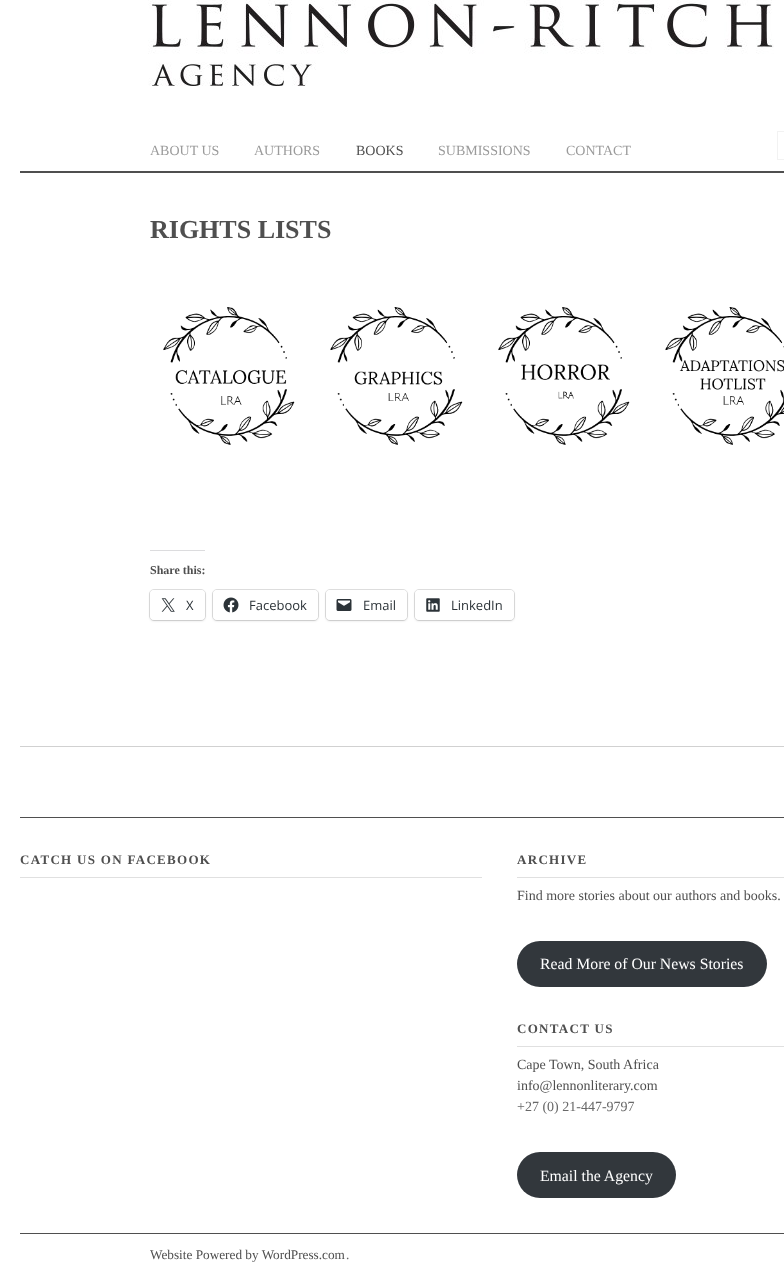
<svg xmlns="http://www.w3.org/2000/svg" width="784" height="1269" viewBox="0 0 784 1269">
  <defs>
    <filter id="blur1" x="-50%" y="-200%" width="200%" height="500%"><feGaussianBlur stdDeviation="1"/></filter>
  </defs>
  <rect width="100%" height="100%" fill="#ffffff"/>
  <rect x="20" y="171" width="764" height="2" fill="#4f4f4f"/>
  <image x="148" y="0" width="626" height="86" href="img1.png"/>
  <text x="150" y="155" font-family="Liberation Serif" font-size="14" fill="#9b9b9b">ABOUT US</text>
  <text x="254" y="155" font-family="Liberation Serif" font-size="14" fill="#9b9b9b">AUTHORS</text>
  <text x="356" y="155" font-family="Liberation Serif" font-size="14" fill="#4f4f4f">BOOKS</text>
  <text x="438" y="155" font-family="Liberation Serif" font-size="14" fill="#9b9b9b">SUBMISSIONS</text>
  <text x="566" y="155" font-family="Liberation Serif" font-size="14" fill="#9b9b9b">CONTACT</text>
  <rect x="777.5" y="131.5" width="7" height="28" fill="none" stroke="#f2f2f2"/>
  <text x="150" y="238" font-family="Liberation Serif" font-size="26" font-weight="bold" fill="#4f4f4f">RIGHTS LISTS</text>
  <image x="163" y="307" width="132" height="138" href="img2.png"/>
  <image x="330" y="307" width="133" height="138" href="img3.png"/>
  <image x="498" y="307" width="132" height="138" href="img4.png"/>
  <image x="665" y="307" width="119" height="138" href="img5.png"/>
  <rect x="150" y="550" width="55" height="1" fill="#dcdcde"/>
  <text x="150" y="574" font-family="Liberation Serif" font-size="12" font-weight="bold" fill="#4f4f4f">Share this:</text>
  <rect x="149.5" y="589.5" width="56" height="31" rx="4.5" fill="none" stroke="#e0e0e0"/>
  <rect x="150" y="591" width="55" height="30" rx="4" fill="#000000" fill-opacity="0.12" filter="url(#blur1)"/>
  <rect x="150" y="590" width="55" height="30" rx="4" fill="#ffffff"/>
  <image x="161" y="598" width="14" height="14" href="img6.png"/>
  <text x="186" y="610" font-family="Open Sans" font-size="13" fill="#2c3338">X</text>
  <rect x="212.5" y="589.5" width="106" height="31" rx="4.5" fill="none" stroke="#e0e0e0"/>
  <rect x="213" y="591" width="105" height="30" rx="4" fill="#000000" fill-opacity="0.12" filter="url(#blur1)"/>
  <rect x="213" y="590" width="105" height="30" rx="4" fill="#ffffff"/>
  <image x="223" y="597" width="16" height="16" href="img7.png"/>
  <text x="249" y="610" font-family="Open Sans" font-size="13" fill="#2c3338">Facebook</text>
  <rect x="325.5" y="589.5" width="82" height="31" rx="4.5" fill="none" stroke="#e0e0e0"/>
  <rect x="326" y="591" width="81" height="30" rx="4" fill="#000000" fill-opacity="0.12" filter="url(#blur1)"/>
  <rect x="326" y="590" width="81" height="30" rx="4" fill="#ffffff"/>
  <image x="336" y="599" width="16" height="12" href="img8.png"/>
  <text x="363" y="610" font-family="Open Sans" font-size="13" fill="#2c3338">Email</text>
  <rect x="414.5" y="589.5" width="100" height="31" rx="4.5" fill="none" stroke="#e0e0e0"/>
  <rect x="415" y="591" width="99" height="30" rx="4" fill="#000000" fill-opacity="0.12" filter="url(#blur1)"/>
  <rect x="415" y="590" width="99" height="30" rx="4" fill="#ffffff"/>
  <image x="426" y="598" width="14" height="14" href="img9.png"/>
  <text x="451" y="610" font-family="Open Sans" font-size="13" fill="#2c3338">LinkedIn</text>
  <rect x="20" y="746" width="764" height="1" fill="#d1d1d1"/>
  <rect x="20" y="817" width="764" height="1" fill="#4f4f4f"/>
  <rect x="20" y="877" width="462" height="1" fill="#e0e0e0"/>
  <text x="20" y="864" font-family="Liberation Serif" font-size="13" font-weight="bold" letter-spacing="1.3" fill="#4f4f4f">CATCH US ON FACEBOOK</text>
  <rect x="517" y="877" width="267" height="1" fill="#e0e0e0"/>
  <text x="517" y="864" font-family="Liberation Serif" font-size="13" font-weight="bold" letter-spacing="1.3" fill="#4f4f4f">ARCHIVE</text>
  <text x="517" y="900" font-family="Liberation Serif" font-size="14" fill="#4f4f4f">Find more stories about our authors and books.</text>
  <rect x="517" y="941" width="250" height="46" rx="23" fill="#32373c"/>
  <text x="540" y="969" font-family="Liberation Serif" font-size="15.75" fill="#ffffff">Read More of Our News Stories</text>
  <rect x="517" y="1046" width="267" height="1" fill="#e0e0e0"/>
  <text x="517" y="1033" font-family="Liberation Serif" font-size="13" font-weight="bold" letter-spacing="1.3" fill="#4f4f4f">CONTACT US</text>
  <text x="517" y="1069" font-family="Liberation Serif" font-size="14" fill="#4f4f4f">Cape Town, South Africa</text>
  <text x="517" y="1090" font-family="Liberation Serif" font-size="14" fill="#4f4f4f">info@lennonliterary.com</text>
  <text x="517" y="1111" font-family="Liberation Serif" font-size="14" fill="#686868">+27 (0) 21-447-9797</text>
  <rect x="517" y="1152" width="159" height="46" rx="23" fill="#32373c"/>
  <text x="540" y="1181" font-family="Liberation Serif" font-size="15.75" fill="#ffffff">Email the Agency</text>
  <rect x="20" y="1233" width="764" height="1" fill="#4f4f4f"/>
  <text x="150" y="1259" font-family="Liberation Serif" font-size="13.25" fill="#4f4f4f">Website Powered by WordPress.com</text>
  <text x="346" y="1259" font-family="Liberation Serif" font-size="13.25" fill="#686868">.</text>
</svg>
